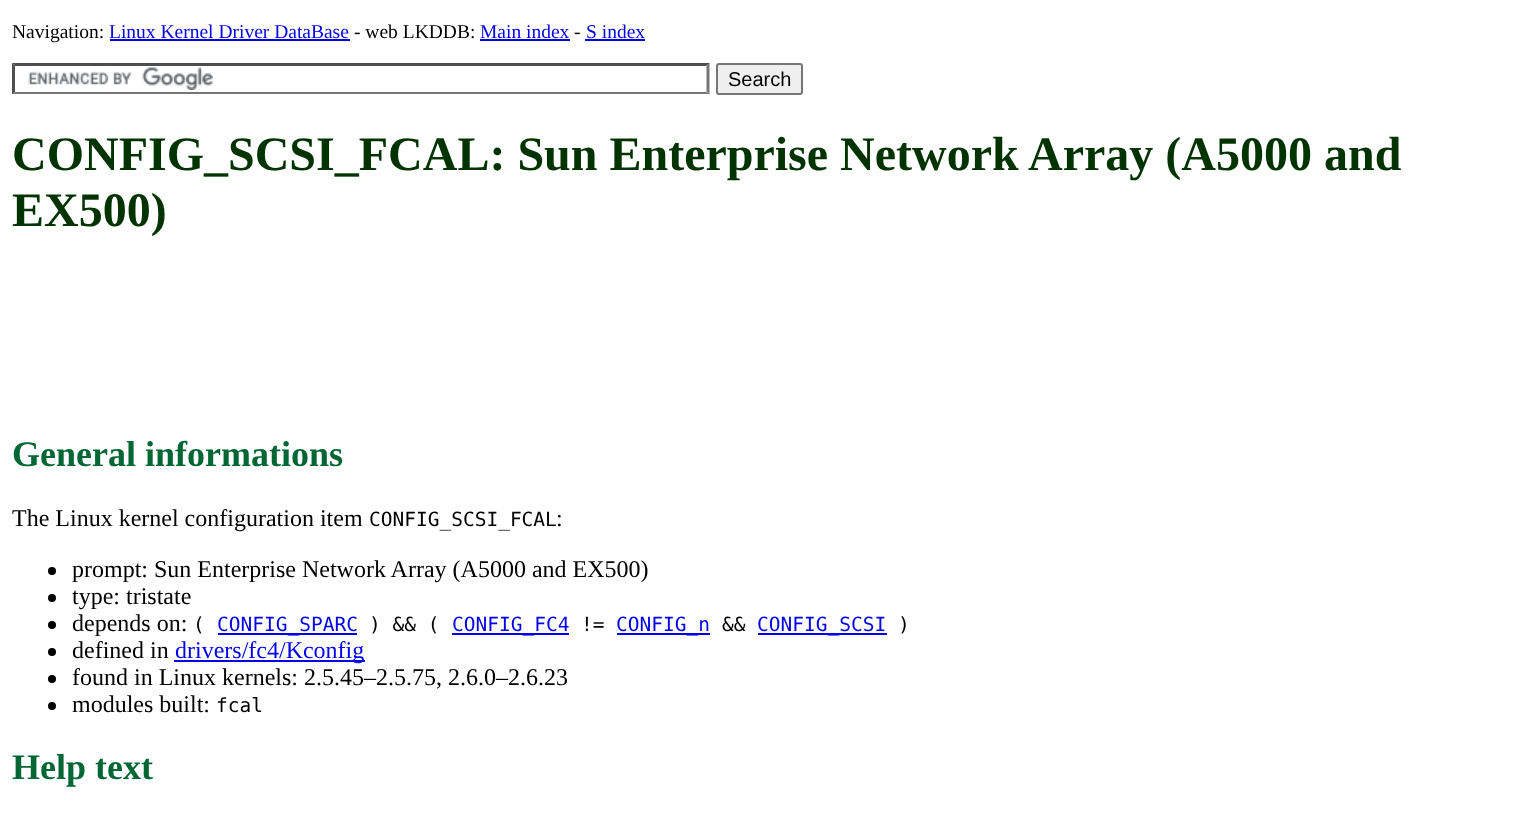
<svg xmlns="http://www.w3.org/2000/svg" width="1539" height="817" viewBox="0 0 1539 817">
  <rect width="100%" height="100%" fill="#ffffff"/>
  <text x="12" y="38" font-family="Liberation Serif" font-size="19.5" fill="#000000">Navigation:</text>
  <text x="109" y="38" font-family="Liberation Serif" font-size="19.5" fill="#0000ee">Linux Kernel Driver DataBase</text>
  <rect x="110" y="39" width="240" height="2" fill="#0000ee"/>
  <text x="354" y="38" font-family="Liberation Serif" font-size="19.5" fill="#000000">- web LKDDB:</text>
  <text x="480" y="38" font-family="Liberation Serif" font-size="19.5" fill="#0000ee">Main index</text>
  <rect x="480" y="39" width="90" height="2" fill="#0000ee"/>
  <text x="574" y="38" font-family="Liberation Serif" font-size="19.5" fill="#000000">-</text>
  <text x="586" y="38" font-family="Liberation Serif" font-size="19.5" fill="#0000ee">S index</text>
  <rect x="585" y="39" width="60" height="2" fill="#0000ee"/>
  <image x="28" y="67" width="185" height="23" href="img1.png"/>
  <path d="M12 63H710L706 66H15Z" fill="#4f4f4f"/>
  <path d="M709.5 63V94.5L706.5 91.5V66Z" fill="#767676"/>
  <path d="M710 94H12L15 92H706Z" fill="#767676"/>
  <path d="M12 94.5V63L15 66V91.5Z" fill="#4f4f4f"/>
  <rect x="717" y="64" width="85" height="30" rx="2" fill="#efefef" stroke="#767676" stroke-width="2"/>
  <text x="728" y="86" font-family="Liberation Sans" font-size="20" fill="#000000">Search</text>
  <text x="12" y="170" font-family="Liberation Serif" font-size="48" font-weight="bold" fill="#003300">CONFIG_SCSI_FCAL: Sun Enterprise Network Array (A5000 and</text>
  <text x="12" y="226" font-family="Liberation Serif" font-size="48" font-weight="bold" fill="#003300">EX500)</text>
  <text x="12" y="466" font-family="Liberation Serif" font-size="36" font-weight="bold" fill="#006633">General informations</text>
  <text x="12" y="526" font-family="Liberation Serif" font-size="24" fill="#000000">The Linux kernel configuration item</text>
  <text x="369" y="526" font-family="DejaVu Sans Mono" font-size="19.5" fill="#000000">CONFIG_SCSI_FCAL</text>
  <text x="556" y="526" font-family="Liberation Serif" font-size="24" fill="#000000">:</text>
  <circle cx="52" cy="571" r="4" fill="#000000"/>
  <text x="72" y="577" font-family="Liberation Serif" font-size="24" fill="#000000">prompt: Sun Enterprise Network Array (A5000 and EX500)</text>
  <circle cx="52" cy="598" r="4" fill="#000000"/>
  <text x="72" y="604" font-family="Liberation Serif" font-size="24" fill="#000000">type: tristate</text>
  <circle cx="52" cy="625" r="4" fill="#000000"/>
  <text x="72" y="631" font-family="Liberation Serif" font-size="24" fill="#000000">depends on:</text>
  <text x="193" y="631" font-family="DejaVu Sans Mono" font-size="19.5" fill="#000000">(</text>
  <rect x="218" y="633" width="139" height="2" fill="#0000ee"/>
  <text x="217" y="631" font-family="DejaVu Sans Mono" font-size="19.5" fill="#0000ee">CONFIG_SPARC</text>
  <text x="369" y="631" font-family="DejaVu Sans Mono" font-size="19.5" fill="#000000">) &amp;&amp; (</text>
  <rect x="452" y="633" width="117" height="2" fill="#0000ee"/>
  <text x="452" y="631" font-family="DejaVu Sans Mono" font-size="19.5" fill="#0000ee">CONFIG_FC4</text>
  <text x="581" y="631" font-family="DejaVu Sans Mono" font-size="19.5" fill="#000000">!=</text>
  <rect x="617" y="633" width="93" height="2" fill="#0000ee"/>
  <text x="616" y="631" font-family="DejaVu Sans Mono" font-size="19.5" fill="#0000ee">CONFIG_n</text>
  <text x="722" y="631" font-family="DejaVu Sans Mono" font-size="19.5" fill="#000000">&amp;&amp;</text>
  <rect x="758" y="633" width="129" height="2" fill="#0000ee"/>
  <text x="757" y="631" font-family="DejaVu Sans Mono" font-size="19.5" fill="#0000ee">CONFIG_SCSI</text>
  <text x="898" y="631" font-family="DejaVu Sans Mono" font-size="19.5" fill="#000000">)</text>
  <circle cx="52" cy="652" r="4" fill="#000000"/>
  <text x="72" y="658" font-family="Liberation Serif" font-size="24" fill="#000000">defined in</text>
  <rect x="174" y="660" width="191" height="2" fill="#0000ee"/>
  <text x="175" y="658" font-family="Liberation Serif" font-size="24" fill="#0000ee">drivers/fc4/Kconfig</text>
  <circle cx="52" cy="679" r="4" fill="#000000"/>
  <text x="72" y="685" font-family="Liberation Serif" font-size="24" fill="#000000">found in Linux kernels: 2.5.45–2.5.75, 2.6.0–2.6.23</text>
  <circle cx="52" cy="706" r="4" fill="#000000"/>
  <text x="72" y="712" font-family="Liberation Serif" font-size="24" fill="#000000">modules built:</text>
  <text x="216" y="712" font-family="DejaVu Sans Mono" font-size="19.5" fill="#000000">fcal</text>
  <text x="12" y="779" font-family="Liberation Serif" font-size="36" font-weight="bold" fill="#006633">Help text</text>
</svg>
